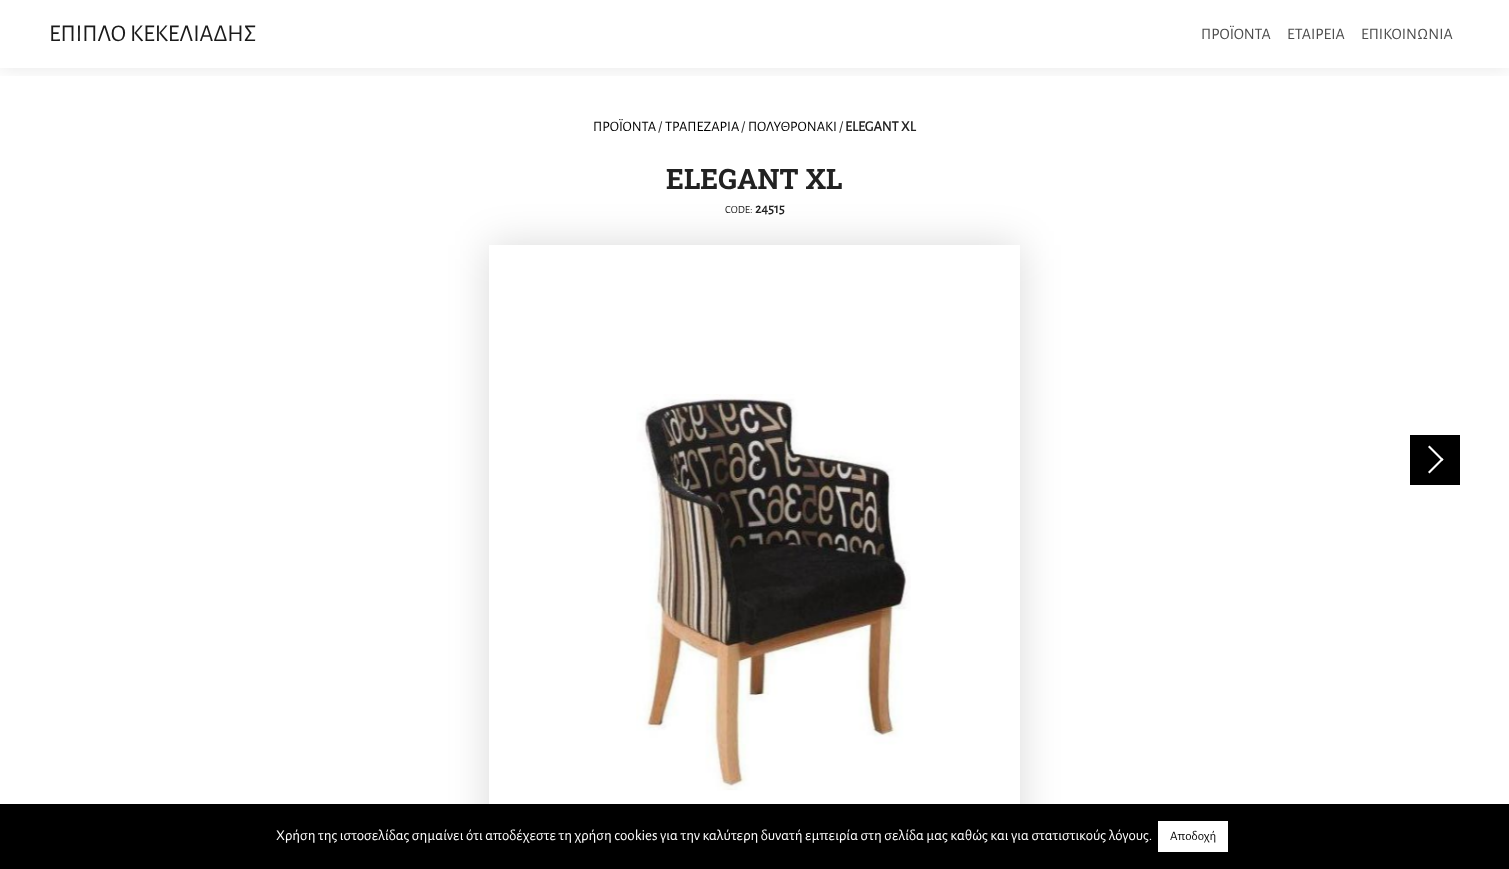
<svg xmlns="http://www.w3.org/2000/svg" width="1509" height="869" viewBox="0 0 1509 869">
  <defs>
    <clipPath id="clip1"><rect x="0" y="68" width="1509" height="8"/></clipPath>
    <filter id="blur1" x="-50%" y="-200%" width="200%" height="500%"><feGaussianBlur stdDeviation="10"/></filter>
    <clipPath id="clip2"><path d="M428 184H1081V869H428ZM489 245H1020V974H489Z" clip-rule="evenodd"/></clipPath>
    <filter id="blur2" x="-50%" y="-200%" width="200%" height="500%"><feGaussianBlur stdDeviation="20"/></filter>
  </defs>
  <rect width="100%" height="100%" fill="#ffffff"/>
  <g clip-path="url(#clip1)">
    <rect x="0" y="0" width="1509" height="68" fill="#000000" fill-opacity="0.1" filter="url(#blur1)"/>
  </g>
  <text x="49" y="41" font-family="Alegreya Sans" font-size="24" fill="#1a1a1a">ΕΠΙΠΛΟ ΚΕΚΕΛΙΑΔΗΣ</text>
  <text x="1201" y="39" font-family="Alegreya Sans" font-size="16" fill="#4d4d4d">ΠΡΟΪΟΝΤΑ</text>
  <text x="1287" y="39" font-family="Alegreya Sans" font-size="16" fill="#4d4d4d">ΕΤΑΙΡΕΙΑ</text>
  <text x="1361" y="39" font-family="Alegreya Sans" font-size="16" fill="#4d4d4d">ΕΠΙΚΟΙΝΩΝΙΑ</text>
  <text x="593" y="131" font-family="Alegreya Sans" font-size="14.5" fill="#000000">ΠΡΟΪΟΝΤΑ</text>
  <text x="658" y="131" font-family="Alegreya Sans" font-size="14.5" fill="#222222">/</text>
  <text x="665" y="131" font-family="Alegreya Sans" font-size="14.5" fill="#000000">ΤΡΑΠΕΖΑΡΙΑ</text>
  <text x="741" y="131" font-family="Alegreya Sans" font-size="14.5" fill="#222222">/</text>
  <text x="748" y="131" font-family="Alegreya Sans" font-size="14.5" fill="#000000">ΠΟΛΥΘΡΟΝΑKI</text>
  <text x="839" y="131" font-family="Alegreya Sans" font-size="14.5" fill="#222222">/</text>
  <text x="845" y="131" font-family="Alegreya Sans" font-size="14.5" font-weight="bold" fill="#222222">ELEGANT XL</text>
  <text x="666" y="189" font-family="Roboto Slab" font-size="28" font-weight="bold" fill="#222222">ELEGANT XL</text>
  <rect x="1410" y="435" width="50" height="50" fill="#000000"/>
  <path d="M1428 447L1429.5 445.5L1443.5 459.5L1442 461Z" fill="#ffffff"/>
  <path d="M1428 472L1442 458L1443.5 459.5L1429.5 473.5Z" fill="#ffffff"/>
  <g clip-path="url(#clip2)">
    <rect x="489" y="245" width="531" height="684" fill="#000000" fill-opacity="0.15" filter="url(#blur2)"/>
  </g>
  <image x="634" y="394" width="277" height="410" href="img1.png"/>
  <text x="725" y="213" font-family="Alegreya Sans" font-size="11" fill="#222222">CODE:</text>
  <text x="755" y="213" font-family="Alegreya Sans" font-size="14" font-weight="bold" fill="#222222">24515</text>
  <rect x="0" y="804" width="1509" height="65" fill="#000000"/>
  <text x="276" y="840" font-family="Alegreya Sans" font-size="15" fill="#ffffff">Χρήση της ιστοσελίδας σημαίνει ότι αποδέχεστε τη χρήση cookies για την καλύτερη δυνατή εμπειρία στη σελίδα μας καθώς και για στατιστικούς λόγους.</text>
  <rect x="1158" y="821" width="70" height="31" fill="#ffffff"/>
  <text x="1170" y="840" font-family="Alegreya Sans" font-size="13" fill="#000000">Αποδοχή</text>
</svg>
